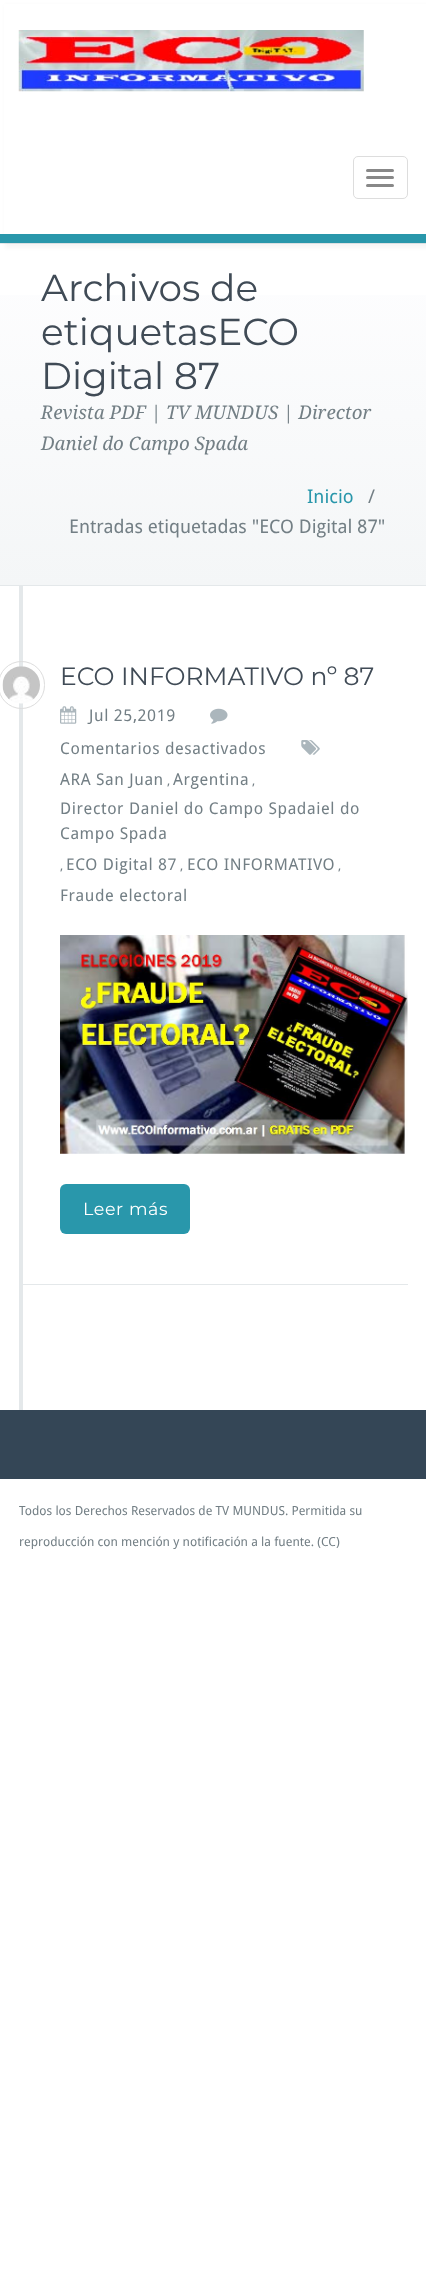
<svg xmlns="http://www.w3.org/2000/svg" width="426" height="2292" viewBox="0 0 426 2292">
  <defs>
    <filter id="blur1" x="-50%" y="-200%" width="200%" height="500%"><feGaussianBlur stdDeviation="2"/></filter>
    <linearGradient id="g1" gradientUnits="userSpaceOnUse" x1="213" y1="244" x2="213" y2="585"><stop offset="0" stop-color="#fefeff"/><stop offset="1" stop-color="#f4f6f7"/></linearGradient>
  </defs>
  <rect width="100%" height="100%" fill="#ffffff"/>
  <rect x="0" y="243" width="426" height="1" fill="#e4e8ea"/>
  <rect x="5" y="5" width="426" height="243" fill="#000000" fill-opacity="0.04" filter="url(#blur1)"/>
  <rect x="4" y="4" width="422" height="230" fill="#ffffff"/>
  <rect x="0" y="234" width="426" height="9" fill="#2997ab"/>
  <image x="18" y="30" width="346" height="62" href="img1.png"/>
  <rect x="353.5" y="156.5" width="54" height="42" rx="4.5" fill="none" stroke="#dddddd"/>
  <rect x="366" y="169" width="28" height="3" rx="1.5" fill="#888888"/>
  <rect x="366" y="176" width="28" height="3" rx="1.5" fill="#888888"/>
  <rect x="366" y="184" width="28" height="3" rx="1.5" fill="#888888"/>
  <rect x="0" y="295" width="426" height="290" fill="url(#g1)"/>
  <rect x="0" y="585" width="426" height="1" fill="#e4e8ea"/>
  <text x="41" y="301" font-family="Montserrat" font-size="37.5" fill="#404b56">Archivos de</text>
  <text x="41" y="345" font-family="Montserrat" font-size="37.5" fill="#404b56">etiquetasECO</text>
  <text x="41" y="389" font-family="Montserrat" font-size="37.5" fill="#404b56">Digital 87</text>
  <text x="41" y="419" font-family="Droid Serif" font-size="18.75" font-style="italic" fill="#737f85">Revista PDF | TV MUNDUS | Director</text>
  <text x="41" y="450" font-family="Droid Serif" font-size="18.75" font-style="italic" fill="#737f85">Daniel do Campo Spada</text>
  <text x="307" y="503" font-family="Droid Sans" font-size="18.75" fill="#2997ab">Inicio</text>
  <text x="368" y="503" font-family="Droid Sans" font-size="18.75" fill="#737f85">/</text>
  <text x="69" y="533" font-family="Droid Sans" font-size="18.75" fill="#737f85">Entradas etiquetadas "ECO Digital 87"</text>
  <rect x="19" y="586" width="4" height="824" fill="#e4e8ea"/>
  <rect x="23" y="1284" width="385" height="1" fill="#e4e8ea"/>
  <rect x="-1.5" y="661.5" width="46" height="47" rx="23" fill="none" stroke="#dddddd"/>
  <image x="2" y="666" width="38" height="38" href="img2.png"/>
  <text x="60" y="685" font-family="Montserrat" font-size="25" fill="#404b56">ECO INFORMATIVO nº 87</text>
  <image x="60" y="706" width="17" height="18" href="img3.png"/>
  <text x="89" y="721" font-family="Droid Sans" font-size="16.25" letter-spacing="0.6" fill="#737f85">Jul 25,2019</text>
  <image x="210" y="708" width="18" height="16" href="img4.png"/>
  <text x="60" y="754" font-family="Droid Sans" font-size="16.25" letter-spacing="0.6" fill="#737f85">Comentarios desactivados</text>
  <image x="301" y="740" width="19" height="15" href="img5.png"/>
  <text x="60" y="785" font-family="Droid Sans" font-size="16.25" letter-spacing="0.6" fill="#737f85">ARA San Juan</text>
  <text x="167" y="785" font-family="Droid Sans" font-size="12.5" fill="#737f85">,</text>
  <text x="173" y="785" font-family="Droid Sans" font-size="16.25" letter-spacing="0.6" fill="#737f85">Argentina</text>
  <text x="252" y="785" font-family="Droid Sans" font-size="12.5" fill="#737f85">,</text>
  <text x="60" y="814" font-family="Droid Sans" font-size="16.25" letter-spacing="0.6" fill="#737f85">Director Daniel do Campo Spadaiel do</text>
  <text x="60" y="839" font-family="Droid Sans" font-size="16.25" letter-spacing="0.6" fill="#737f85">Campo Spada</text>
  <text x="60" y="870" font-family="Droid Sans" font-size="12.5" fill="#737f85">,</text>
  <text x="66" y="870" font-family="Droid Sans" font-size="16.25" letter-spacing="0.6" fill="#737f85">ECO Digital 87</text>
  <text x="180" y="870" font-family="Droid Sans" font-size="12.5" fill="#737f85">,</text>
  <text x="187" y="870" font-family="Droid Sans" font-size="16.25" letter-spacing="0.6" fill="#737f85">ECO INFORMATIVO</text>
  <text x="338" y="870" font-family="Droid Sans" font-size="12.5" fill="#737f85">,</text>
  <text x="60" y="901" font-family="Droid Sans" font-size="16.25" letter-spacing="0.6" fill="#737f85">Fraude electoral</text>
  <image x="60" y="935" width="348" height="219" href="img6.png"/>
  <rect x="60" y="1184" width="130" height="50" rx="6" fill="#2997ab"/>
  <text x="83" y="1215" font-family="Montserrat" font-size="17.5" letter-spacing="0.6" fill="#ffffff">Leer más</text>
  <rect x="0" y="1410" width="426" height="69" fill="#344656"/>
  <text x="19" y="1515" font-family="Droid Sans" font-size="12.5" fill="#737f85">Todos los Derechos Reservados de TV MUNDUS. Permitida su</text>
  <text x="19" y="1546" font-family="Droid Sans" font-size="12.5" fill="#737f85">reproducción con mención y notificación a la fuente. (CC)</text>
</svg>
